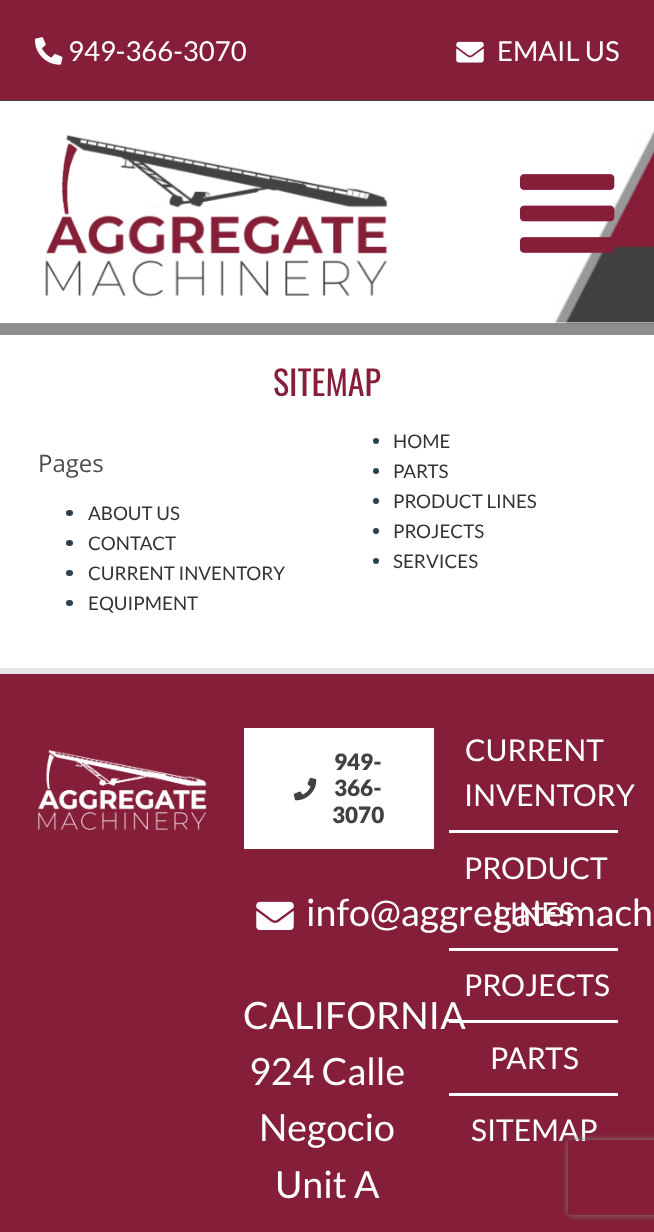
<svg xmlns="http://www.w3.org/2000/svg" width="654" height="1232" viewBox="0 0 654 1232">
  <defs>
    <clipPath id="clip1"><path d="M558 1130H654V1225H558ZM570.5 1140H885.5C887 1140 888 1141 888 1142.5V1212.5C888 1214 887 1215 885.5 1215H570.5C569 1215 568 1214 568 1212.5V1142.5C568 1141 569 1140 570.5 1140Z" clip-rule="evenodd"/></clipPath>
    <filter id="blur1" x="-50%" y="-200%" width="200%" height="500%"><feGaussianBlur stdDeviation="3"/></filter>
  </defs>
  <rect width="100%" height="100%" fill="#ffffff"/>
  <rect x="0" y="323" width="654" height="12" fill="#8d8d8d"/>
  <rect x="0" y="100" width="654" height="1" fill="#414141"/>
  <rect x="0" y="0" width="654" height="100" fill="#851e39"/>
  <image x="34" y="37" width="29" height="28" href="img1.png"/>
  <text x="68" y="61" font-family="Lato" font-size="27.5" fill="#ffffff">949-366-3070</text>
  <image x="456" y="41" width="28" height="22" href="img2.png"/>
  <text x="497" y="61" font-family="Lato" font-size="27.5" fill="#ffffff">EMAIL US</text>
  <image x="0" y="129" width="654" height="195" href="img3.png"/>
  <image x="45" y="134" width="343" height="163" href="img4.png"/>
  <image x="520" y="174" width="95" height="79" href="img5.png"/>
  <text x="273" y="396" font-family="Oswald" font-size="34" fill="#861e39">SITEMAP</text>
  <text x="38" y="472" font-family="Open Sans" font-size="24" fill="#4c4c4c">Pages</text>
  <circle cx="376" cy="441" r="3" fill="#2b414d"/>
  <text x="393" y="448" font-family="Lato" font-size="18.75" fill="#333333">HOME</text>
  <circle cx="376" cy="471" r="3" fill="#2b414d"/>
  <text x="393" y="478" font-family="Lato" font-size="18.75" fill="#333333">PARTS</text>
  <circle cx="376" cy="501" r="3" fill="#2b414d"/>
  <text x="393" y="508" font-family="Lato" font-size="18.75" fill="#333333">PRODUCT LINES</text>
  <rect x="66" y="510" width="7" height="6" rx="3" fill="#2b414d"/>
  <text x="88" y="520" font-family="Lato" font-size="18.75" fill="#333333">ABOUT US</text>
  <circle cx="376" cy="531" r="3" fill="#2b414d"/>
  <text x="393" y="538" font-family="Lato" font-size="18.75" fill="#333333">PROJECTS</text>
  <rect x="66" y="540" width="7" height="6" rx="3" fill="#2b414d"/>
  <text x="88" y="550" font-family="Lato" font-size="18.75" fill="#333333">CONTACT</text>
  <circle cx="376" cy="561" r="3" fill="#2b414d"/>
  <text x="393" y="568" font-family="Lato" font-size="18.75" fill="#333333">SERVICES</text>
  <rect x="66" y="570" width="7" height="6" rx="3" fill="#2b414d"/>
  <text x="88" y="580" font-family="Lato" font-size="18.75" fill="#333333">CURRENT INVENTORY</text>
  <rect x="66" y="600" width="7" height="6" rx="3" fill="#2b414d"/>
  <text x="88" y="610" font-family="Lato" font-size="18.75" fill="#333333">EQUIPMENT</text>
  <rect x="0" y="674" width="654" height="558" fill="#851e39"/>
  <rect x="0" y="668" width="654" height="6" fill="#e6e6e6"/>
  <image x="38" y="750" width="169" height="80" href="img6.png"/>
  <rect x="449" y="830" width="169" height="3" fill="#ffffff"/>
  <text x="465" y="761" font-family="Lato" font-size="30" fill="#ffffff">CURRENT</text>
  <text x="464" y="806" font-family="Lato" font-size="30" fill="#ffffff">INVENTORY</text>
  <rect x="449" y="948" width="169" height="3" fill="#ffffff"/>
  <text x="464" y="879" font-family="Lato" font-size="30" fill="#ffffff">PRODUCT</text>
  <text x="306" y="926" font-family="Lato" font-size="37.5" fill="#ffffff">info@aggregatemach</text>
  <text x="494" y="924" font-family="Lato" font-size="30" fill="#ffffff">LINES</text>
  <rect x="449" y="1020" width="169" height="3" fill="#ffffff"/>
  <text x="464" y="996" font-family="Lato" font-size="30" fill="#ffffff">PROJECTS</text>
  <rect x="449" y="1093" width="169" height="3" fill="#ffffff"/>
  <text x="490" y="1069" font-family="Lato" font-size="30" fill="#ffffff">PARTS</text>
  <text x="471" y="1141" font-family="Lato" font-size="30" fill="#ffffff">SITEMAP</text>
  <rect x="244" y="728" width="190" height="121" fill="#ffffff"/>
  <image x="293" y="777" width="24" height="24" href="img7.png"/>
  <text x="334" y="770" font-family="Lato" font-size="22.5" font-weight="900" fill="#414141">949-</text>
  <text x="334" y="796" font-family="Lato" font-size="22.5" font-weight="900" fill="#414141">366-</text>
  <text x="332" y="823" font-family="Lato" font-size="22.5" font-weight="900" fill="#414141">3070</text>
  <image x="256" y="901" width="38" height="29" href="img8.png"/>
  <text x="243" y="1029" font-family="Lato" font-size="37.5" fill="#ffffff">CALIFORNIA</text>
  <text x="249" y="1085" font-family="Lato" font-size="37.5" fill="#ffffff">924 Calle</text>
  <text x="259" y="1141" font-family="Lato" font-size="37.5" fill="#ffffff">Negocio</text>
  <text x="275" y="1198" font-family="Lato" font-size="37.5" fill="#ffffff">Unit A</text>
  <g clip-path="url(#clip1)">
    <rect x="568" y="1140" width="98" height="75" rx="2.5" fill="#808080" filter="url(#blur1)"/>
  </g>
</svg>
